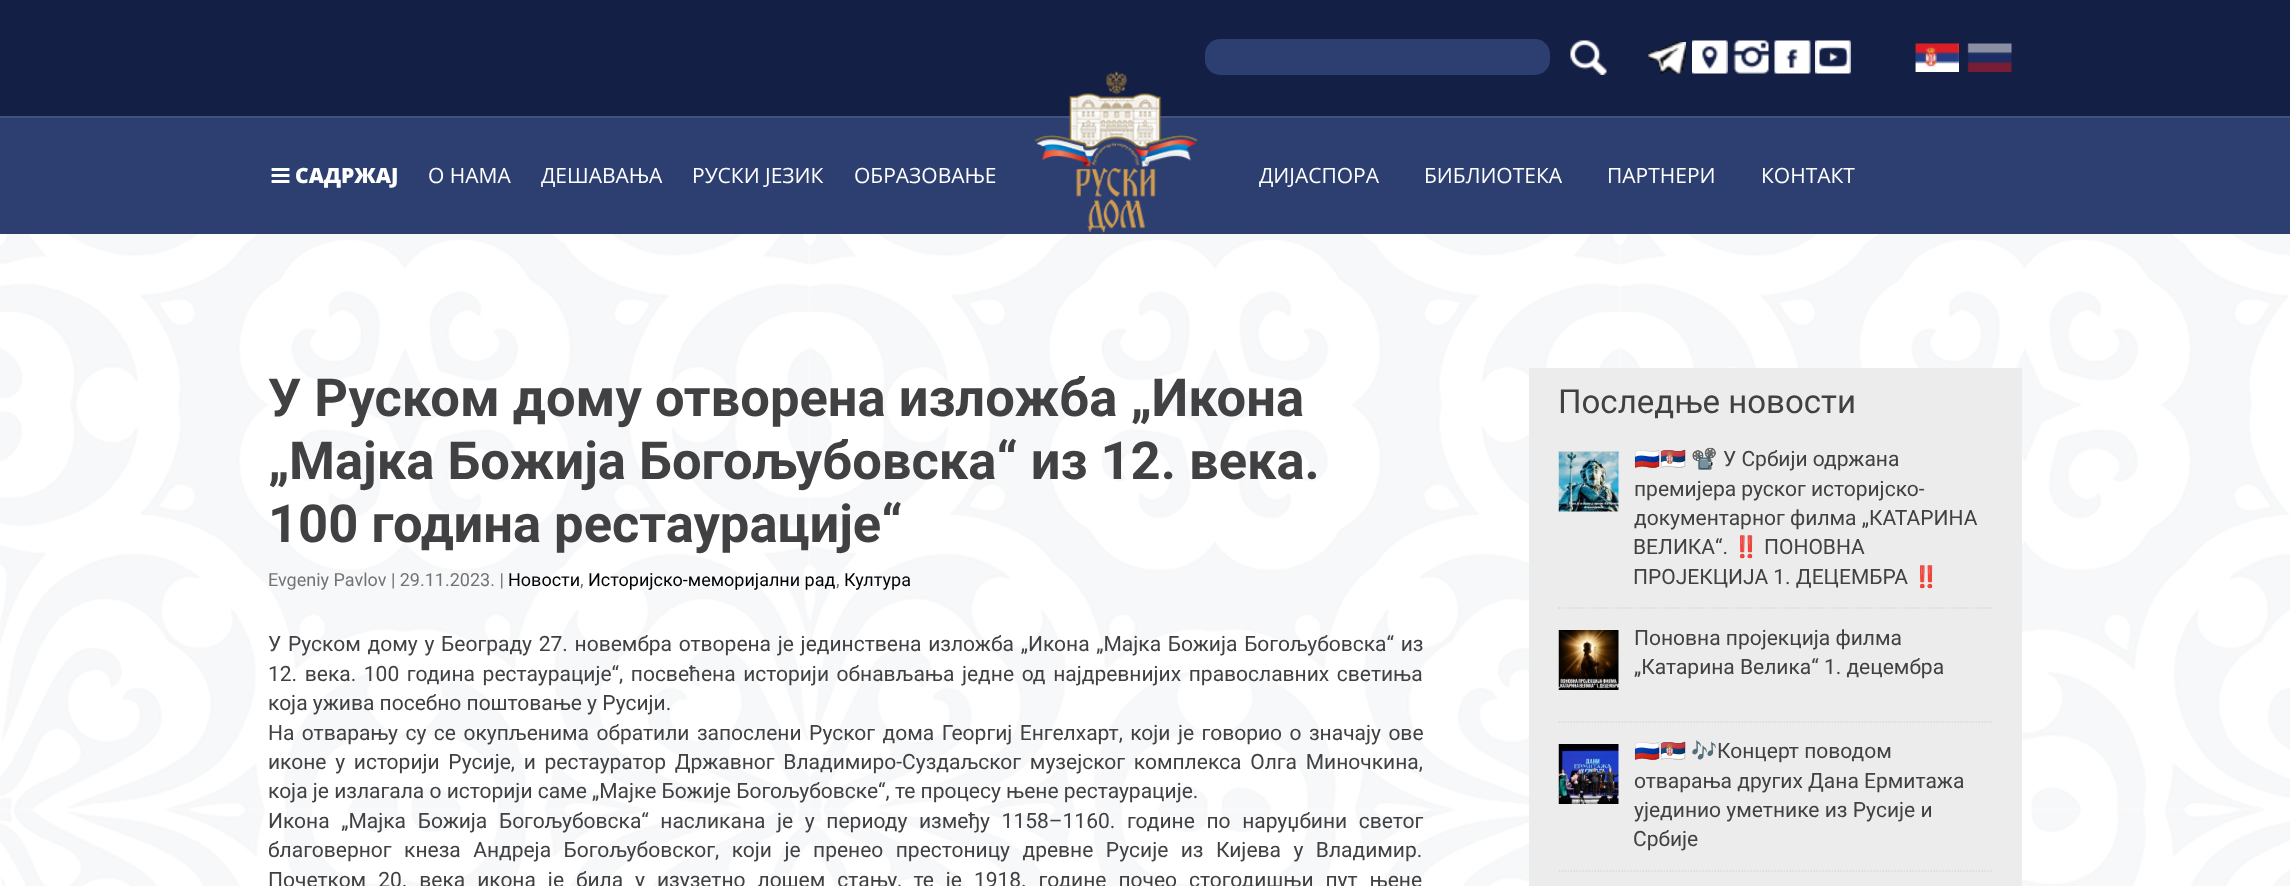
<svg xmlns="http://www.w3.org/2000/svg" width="2290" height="886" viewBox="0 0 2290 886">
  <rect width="100%" height="100%" fill="#ffffff"/>
  <image x="0" y="234" width="2290" height="652" href="img1.png"/>
  <rect x="0" y="0" width="2290" height="116" fill="#141f46"/>
  <rect x="1205" y="39" width="345" height="36" rx="15" fill="#2d3f71"/>
  <image x="1570" y="40" width="37" height="35" href="img2.png"/>
  <image x="1648" y="42" width="38" height="32" href="img3.png"/>
  <image x="1692" y="40" width="36" height="34" href="img4.png"/>
  <image x="1733" y="40" width="36" height="34" href="img5.png"/>
  <image x="1774" y="40" width="37" height="34" href="img6.png"/>
  <image x="1815" y="40" width="36" height="34" href="img7.png"/>
  <image x="1915" y="43" width="44" height="29" href="img8.png"/>
  <image x="1967" y="43" width="45" height="29" href="img9.png"/>
  <rect x="0" y="118" width="2290" height="116" fill="#2d3f71"/>
  <rect x="0" y="116" width="2290" height="2" fill="#42527e"/>
  <image x="1034" y="71" width="164" height="162" href="img10.png"/>
  <image x="271" y="168" width="19" height="15" href="img11.png"/>
  <text x="295" y="183" font-family="Open Sans" font-size="21" font-weight="800" fill="#ffffff">САДРЖАЈ</text>
  <text x="428" y="183" font-family="Open Sans" font-size="21" fill="#ffffff">О НАМА</text>
  <text x="541" y="183" font-family="Open Sans" font-size="21" fill="#ffffff">ДЕШАВАЊА</text>
  <text x="692" y="183" font-family="Open Sans" font-size="21" fill="#ffffff">РУСКИ JEЗИК</text>
  <text x="854" y="183" font-family="Open Sans" font-size="21" fill="#ffffff">ОБРАЗОВАЊЕ</text>
  <text x="1259" y="183" font-family="Open Sans" font-size="21" fill="#ffffff">ДИЈАСПОРА</text>
  <text x="1424" y="183" font-family="Open Sans" font-size="21" fill="#ffffff">БИБЛИOТЕКА</text>
  <text x="1607" y="183" font-family="Open Sans" font-size="21" fill="#ffffff">ПАРТНЕРИ</text>
  <text x="1761" y="183" font-family="Open Sans" font-size="21" fill="#ffffff">КОНТАКТ</text>
  <text x="268" y="416" font-family="Roboto" font-size="52.5" font-weight="bold" fill="#414042">У Руском дому отворена изложба „Икона</text>
  <text x="268" y="479" font-family="Roboto" font-size="52.5" font-weight="bold" fill="#414042">„Мајка Божија Богољубовска“ из 12. века.</text>
  <text x="268" y="542" font-family="Roboto" font-size="52.5" font-weight="bold" fill="#414042">100 година рестаурације“</text>
  <text x="268" y="586" font-family="Roboto" font-size="18" fill="#737373">Evgeniy Pavlov | 29.11.2023. |</text>
  <text x="508" y="586" font-family="Roboto" font-size="18" fill="#000000">Новости</text>
  <text x="580" y="586" font-family="Roboto" font-size="18" fill="#737373">,</text>
  <text x="588" y="586" font-family="Roboto" font-size="18" fill="#000000">Историјско-меморијални рад</text>
  <text x="836" y="586" font-family="Roboto" font-size="18" fill="#737373">,</text>
  <text x="844" y="586" font-family="Roboto" font-size="18" fill="#000000">Култура</text>
  <text x="268" y="651" word-spacing="1.5" font-family="Roboto" font-size="21" fill="#414042">У Руском дому у Београду 27. новембра отворена је јединствена изложба „Икона „Мајка Божија Богољубовска“ из</text>
  <text x="268" y="681" word-spacing="2.4" font-family="Roboto" font-size="21" fill="#414042">12. века. 100 година рестаурације“, посвећена историји обнављања једне од најдревнијих православних светиња</text>
  <text x="268" y="710" font-family="Roboto" font-size="21" fill="#414042">која ужива посебно поштовање у Русији.</text>
  <text x="268" y="740" word-spacing="2.25" font-family="Roboto" font-size="21" fill="#414042">На отварању су се окупљенима обратили запослени Руског дома Георгиј Енгелхарт, који је говорио о значају ове</text>
  <text x="268" y="769" word-spacing="3.5" font-family="Roboto" font-size="21" fill="#414042">иконе у историји Русије, и рестауратор Државног Владимиро-Суздаљског музејског комплекса Олга Миночкина,</text>
  <text x="268" y="798" font-family="Roboto" font-size="21" fill="#414042">која је излагала о историји саме „Мајке Божије Богољубовске“, те процесу њене рестаурације.</text>
  <text x="268" y="828" word-spacing="6.4" font-family="Roboto" font-size="21" fill="#414042">Икона „Мајка Божија Богољубовска“ насликана је у периоду између 1158–1160. године по наруџбини светог</text>
  <text x="268" y="857" word-spacing="7.25" font-family="Roboto" font-size="21" fill="#414042">благоверног кнеза Андреја Богољубовског, који је пренео престоницу древне Русије из Кијева у Владимир.</text>
  <text x="268" y="887" word-spacing="6.75" font-family="Roboto" font-size="21" fill="#414042">Почетком 20. века икона је била у изузетно лошем стању, те је 1918. године почео стогодишњи пут њене</text>
  <rect x="1529" y="368" width="493" height="518" fill="#ececec"/>
  <text x="1558" y="413" font-family="Roboto" font-size="33" fill="#414042">Последње новости</text>
  <path d="M1558.5 608H1992" fill="none" stroke="#ded6d6" stroke-width="1.5" stroke-dasharray="1.5 1.5"/>
  <image x="1558" y="451" width="61" height="61" href="img12.png"/>
  <text x="1634" y="466" font-family="Noto Color Emoji" font-size="21" fill="#414042">🇷🇺🇷🇸</text>
  <text x="1691" y="466" font-family="Noto Color Emoji" font-size="21" fill="#414042">📽</text>
  <text x="1723" y="466" font-family="Roboto" font-size="21" fill="#414042">У Србији одржана</text>
  <text x="1634" y="496" font-family="Roboto" font-size="21" fill="#414042">премијера руског историјско-</text>
  <text x="1634" y="525" font-family="Roboto" font-size="21" fill="#414042">документарног филма „КАТАРИНА</text>
  <text x="1633" y="554" font-family="Roboto" font-size="21" fill="#414042">ВЕЛИКА“.</text>
  <text x="1733" y="554" font-family="Noto Color Emoji" font-size="21" fill="#414042">‼️</text>
  <text x="1764" y="554" font-family="Roboto" font-size="21" fill="#414042">ПОНОВНА</text>
  <text x="1633" y="584" font-family="Roboto" font-size="21" fill="#414042">ПРОЈЕКЦИЈА 1. ДЕЦЕМБРА</text>
  <text x="1913" y="584" font-family="Noto Color Emoji" font-size="21" fill="#414042">‼️</text>
  <path d="M1558.5 722H1992" fill="none" stroke="#ded6d6" stroke-width="1.5" stroke-dasharray="1.5 1.5"/>
  <image x="1558" y="630" width="61" height="60" href="img13.png"/>
  <text x="1634" y="645" font-family="Roboto" font-size="21" fill="#414042">Поновна пројекција филма</text>
  <text x="1634" y="674" font-family="Roboto" font-size="21" fill="#414042">„Катарина Велика“ 1. децембра</text>
  <path d="M1558.5 871H1992" fill="none" stroke="#ded6d6" stroke-width="1.5" stroke-dasharray="1.5 1.5"/>
  <image x="1558" y="744" width="61" height="60" href="img14.png"/>
  <text x="1634" y="758" font-family="Noto Color Emoji" font-size="21" fill="#414042">🇷🇺🇷🇸</text>
  <text x="1691" y="758" font-family="Noto Color Emoji" font-size="21" fill="#414042">🎶</text>
  <text x="1717" y="758" font-family="Roboto" font-size="21" fill="#414042">Концерт поводом</text>
  <text x="1634" y="788" font-family="Roboto" font-size="21" fill="#414042">отварања других Дана Ермитажа</text>
  <text x="1634" y="817" font-family="Roboto" font-size="21" fill="#414042">ујединио уметнике из Русије и</text>
  <text x="1633" y="846" font-family="Roboto" font-size="21" fill="#414042">Србије</text>
</svg>
